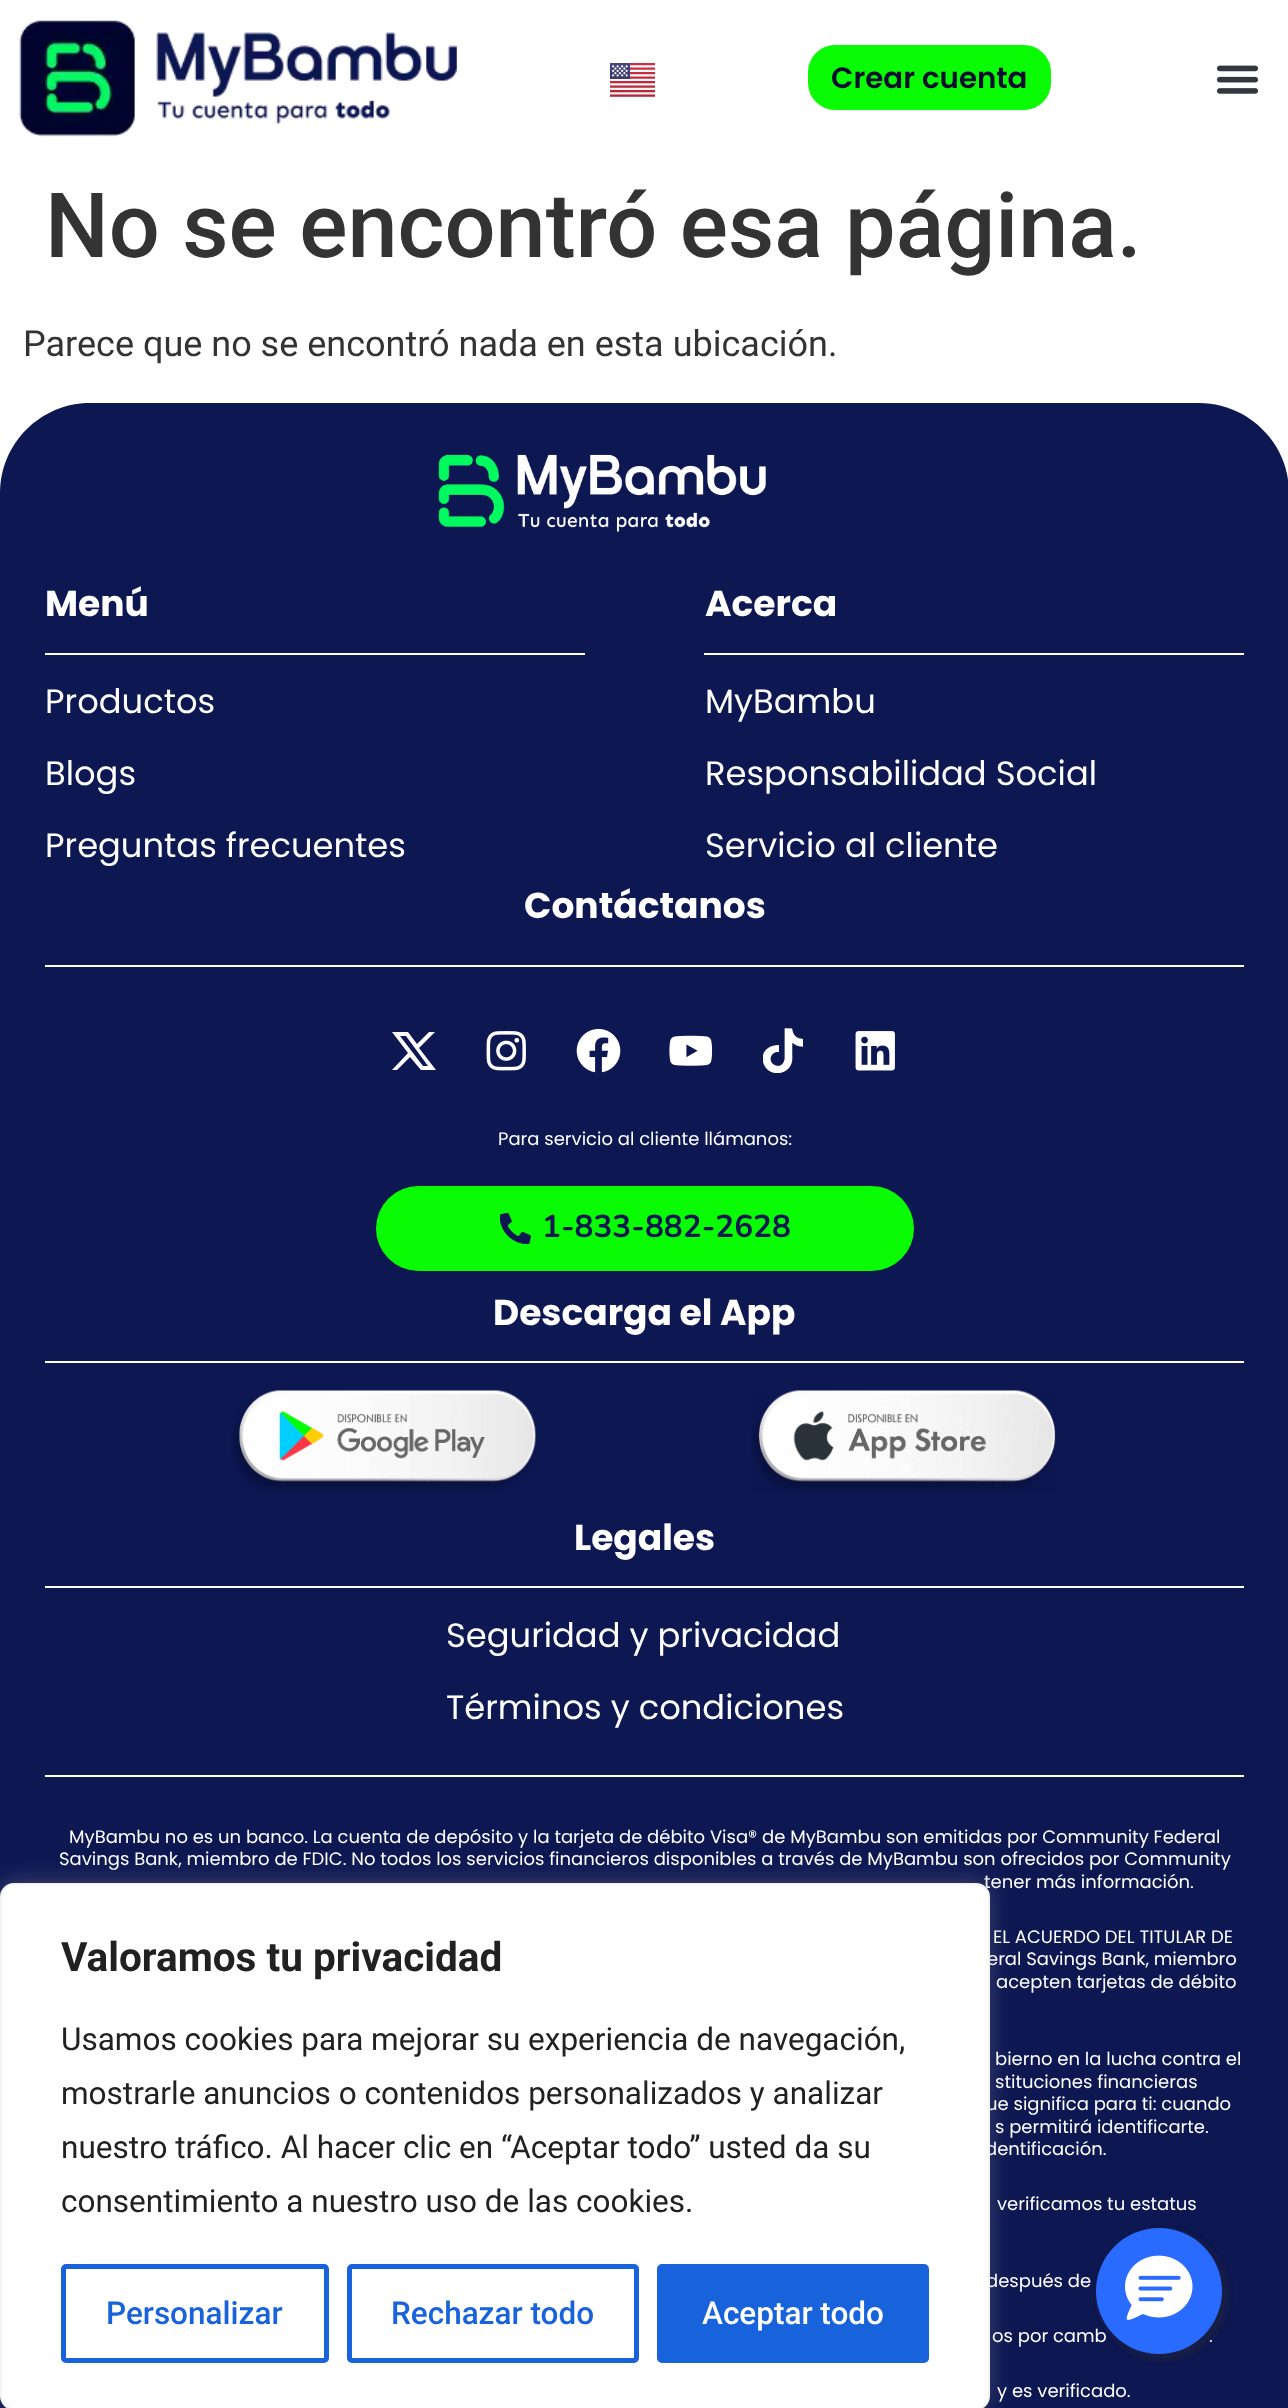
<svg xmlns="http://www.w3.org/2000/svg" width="1288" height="2408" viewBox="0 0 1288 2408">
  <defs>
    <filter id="blur1" x="-50%" y="-200%" width="200%" height="500%"><feGaussianBlur stdDeviation="11"/></filter>
    <filter id="blur2" x="-50%" y="-200%" width="200%" height="500%"><feGaussianBlur stdDeviation="5.5"/></filter>
  </defs>
  <rect width="100%" height="100%" fill="#ffffff"/>
  <image x="18" y="19" width="439" height="118" href="img1.png"/>
  <image x="610" y="63" width="45" height="34" href="img2.png"/>
  <rect x="808" y="45" width="243" height="65" rx="27" fill="#09fc04"/>
  <text x="831" y="88" font-family="Poppins" font-size="29.25" font-weight="600" fill="#050d30">Crear cuenta</text>
  <image x="1216" y="65" width="43" height="29" href="img3.png"/>
  <text x="45" y="257" font-family="Roboto" font-size="90" font-weight="500" fill="#333333">No se encontró esa página.</text>
  <text x="23" y="356" font-family="Roboto" font-size="36" fill="#333333">Parece que no se encontró nada en esta ubicación.</text>
  <path d="M90 403H1199C1248.5 403 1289 443.5 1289 493V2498H0V493C0 443.5 40.5 403 90 403Z" fill="#0d1752"/>
  <image x="438" y="454" width="328" height="78" href="img4.png"/>
  <text x="45" y="616" font-family="Poppins" font-size="36" font-weight="bold" fill="#ffffff">Menú</text>
  <rect x="45" y="653" width="540" height="2" fill="#ffffff"/>
  <text x="45" y="713" font-family="Poppins" font-size="33.75" fill="#ffffff">Productos</text>
  <text x="45" y="785" font-family="Poppins" font-size="33.75" fill="#ffffff">Blogs</text>
  <text x="45" y="857" font-family="Poppins" font-size="33.75" fill="#ffffff">Preguntas frecuentes</text>
  <text x="705" y="616" font-family="Poppins" font-size="36" font-weight="bold" fill="#ffffff">Acerca</text>
  <rect x="704" y="653" width="540" height="2" fill="#ffffff"/>
  <text x="705" y="713" font-family="Poppins" font-size="33.75" fill="#ffffff">MyBambu</text>
  <text x="705" y="785" font-family="Poppins" font-size="33.75" fill="#ffffff">Responsabilidad Social</text>
  <text x="705" y="857" font-family="Poppins" font-size="33.75" fill="#ffffff">Servicio al cliente</text>
  <text x="524" y="918" font-family="Poppins" font-size="36" font-weight="bold" fill="#ffffff">Contáctanos</text>
  <rect x="45" y="965" width="1199" height="2" fill="#ffffff"/>
  <path d="M423 1066L400 1036H406L428 1066ZM392 1070H397L410 1057L421 1070H436L419 1048L435 1032H429L417 1044L408 1032H392L408 1053Z" fill="#ffffff"/>
  <image x="486" y="1031" width="40" height="40" href="img5.png"/>
  <image x="576" y="1028" width="45" height="45" href="img6.png"/>
  <image x="669" y="1035" width="44" height="31" href="img7.png"/>
  <image x="763" y="1028" width="40" height="45" href="img8.png"/>
  <image x="855" y="1031" width="40" height="40" href="img9.png"/>
  <text x="498" y="1145" font-family="Poppins" font-size="18" fill="#ffffff">Para servicio al cliente llámanos:</text>
  <rect x="376" y="1186" width="538" height="85" rx="42.5" fill="#09fc04"/>
  <image x="500" y="1213" width="31" height="31" href="img10.png"/>
  <text x="542" y="1237" font-family="Nunito" font-size="31.5" font-weight="bold" fill="#0d1752">1-833-882-2628</text>
  <text x="493" y="1325" font-family="Poppins" font-size="36" font-weight="bold" fill="#ffffff">Descarga el App</text>
  <rect x="45" y="1361" width="1199" height="2" fill="#ffffff"/>
  <image x="231" y="1390" width="305" height="102" href="img11.png"/>
  <image x="751" y="1390" width="305" height="103" href="img12.png"/>
  <text x="574" y="1550" font-family="Poppins" font-size="36" font-weight="bold" fill="#ffffff">Legales</text>
  <rect x="45" y="1586" width="1199" height="2" fill="#ffffff"/>
  <text x="446" y="1647" font-family="Poppins" font-size="33.75" fill="#ffffff">Seguridad y privacidad</text>
  <text x="446" y="1719" font-family="Poppins" font-size="33.75" fill="#ffffff">Términos y condiciones</text>
  <rect x="45" y="1775" width="1199" height="2" fill="#ffffff"/>
  <text x="69" y="1843" font-family="Poppins" font-size="18" fill="#ffffff">MyBambu no es un banco. La cuenta de depósito y la tarjeta de débito Visa® de MyBambu son emitidas por Community Federal</text>
  <text x="59" y="1865" font-family="Poppins" font-size="18" fill="#ffffff">Savings Bank, miembro de FDIC. No todos los servicios financieros disponibles a través de MyBambu son ofrecidos por Community</text>
  <text x="984" y="1888" font-family="Poppins" font-size="18" fill="#ffffff">tener más información.</text>
  <text x="993" y="1943" font-family="Poppins" font-size="18" fill="#ffffff">EL ACUERDO DEL TITULAR DE</text>
  <text x="987" y="1965" font-family="Poppins" font-size="18" fill="#ffffff">eral Savings Bank, miembro</text>
  <text x="996" y="1988" font-family="Poppins" font-size="18" fill="#ffffff">acepten tarjetas de débito</text>
  <text x="995" y="2065" font-family="Poppins" font-size="18" fill="#ffffff">bierno en la lucha contra el</text>
  <text x="995" y="2088" font-family="Poppins" font-size="18" fill="#ffffff">stituciones financieras</text>
  <text x="986" y="2110" font-family="Poppins" font-size="18" fill="#ffffff">ue significa para ti: cuando</text>
  <text x="995" y="2133" font-family="Poppins" font-size="18" fill="#ffffff">s permitirá identificarte.</text>
  <text x="985" y="2155" font-family="Poppins" font-size="18" fill="#ffffff">dentificación.</text>
  <text x="997" y="2210" font-family="Poppins" font-size="18" fill="#ffffff">verificamos tu estatus</text>
  <text x="986" y="2287" font-family="Poppins" font-size="18" fill="#ffffff">después de</text>
  <text x="992" y="2342" font-family="Poppins" font-size="18" fill="#ffffff">os por camb</text>
  <text x="1209" y="2342" font-family="Poppins" font-size="18" fill="#ffffff">.</text>
  <text x="997" y="2397" font-family="Poppins" font-size="18" fill="#ffffff">y es verificado.</text>
  <rect x="0" y="1881" width="990" height="527" rx="14" fill="#acabab" fill-opacity="0.3" filter="url(#blur1)"/>
  <rect x="1" y="1884" width="988" height="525" rx="13" fill="#ffffff" stroke="#f4f4f4" stroke-width="2"/>
  <text x="61" y="1971" font-family="Roboto" font-size="40.5" font-weight="bold" fill="#212121">Valoramos tu privacidad</text>
  <text x="61" y="2050" font-family="Roboto" font-size="31.5" fill="#212121">Usamos cookies para mejorar su experiencia de navegación,</text>
  <text x="61" y="2104" font-family="Roboto" font-size="31.5" fill="#212121">mostrarle anuncios o contenidos personalizados y analizar</text>
  <text x="61" y="2158" font-family="Roboto" font-size="31.5" fill="#212121">nuestro tráfico. Al hacer clic en “Aceptar todo” usted da su</text>
  <text x="61" y="2212" font-family="Roboto" font-size="31.5" fill="#212121">consentimiento a nuestro uso de las cookies.</text>
  <rect x="63.5" y="2266.5" width="263" height="94" rx="2.5" fill="none" stroke="#1863dc" stroke-width="5"/>
  <text x="106" y="2324" font-family="Roboto" font-size="31.5" font-weight="500" fill="#1863dc">Personalizar</text>
  <rect x="349.5" y="2266.5" width="287" height="94" rx="2.5" fill="none" stroke="#1863dc" stroke-width="5"/>
  <text x="391" y="2324" font-family="Roboto" font-size="31.5" font-weight="500" fill="#1863dc">Rechazar todo</text>
  <rect x="659.5" y="2266.5" width="267" height="94" rx="2.5" fill="#1863dc" stroke="#1863dc" stroke-width="5"/>
  <text x="702" y="2324" font-family="Roboto" font-size="31.5" font-weight="500" fill="#ffffff">Aceptar todo</text>
  <rect x="1100" y="2232" width="126" height="126" rx="63" fill="#2d2d2d" fill-opacity="0.5" filter="url(#blur2)"/>
  <circle cx="1159" cy="2291" r="63" fill="#296bff"/>
  <image x="1125" y="2255" width="68" height="65" href="img13.png"/>
</svg>
